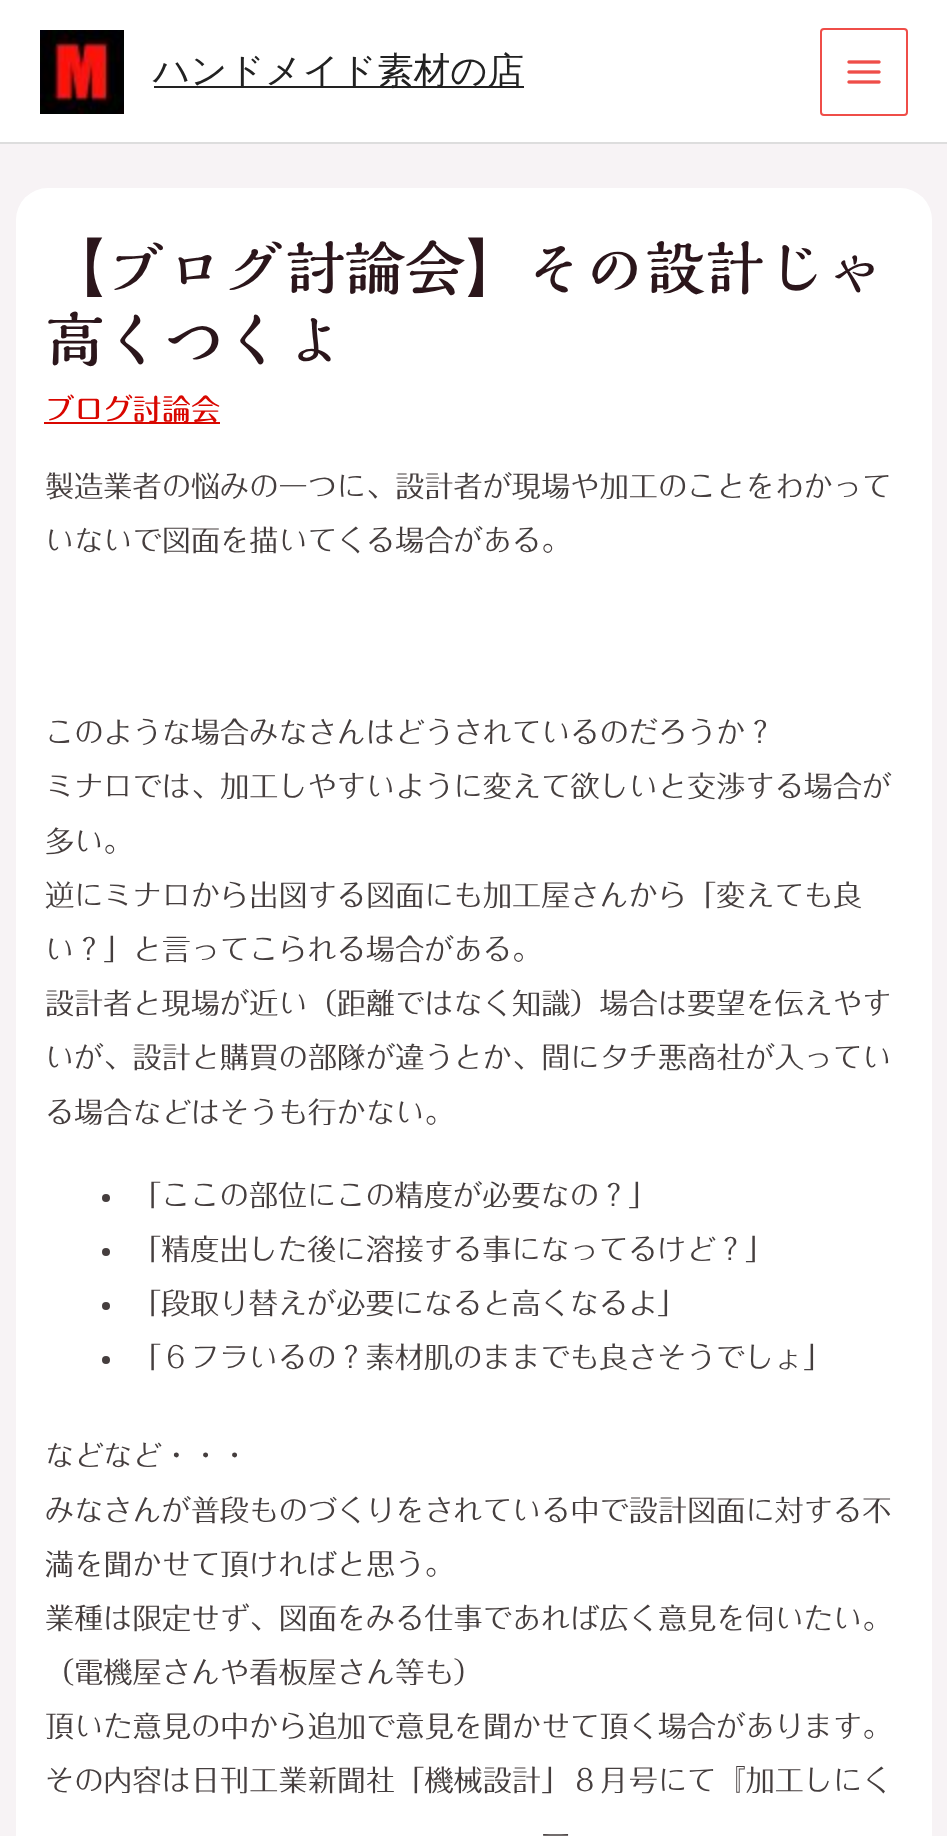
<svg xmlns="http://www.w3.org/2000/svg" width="947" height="1836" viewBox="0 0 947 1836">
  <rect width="100%" height="100%" fill="#f7f3f5"/>
  <rect x="0" y="0" width="947" height="142" fill="#ffffff"/>
  <rect x="0" y="142" width="947" height="2" fill="#dddddd"/>
  <image x="40" y="30" width="84" height="84" href="img1.png"/>
  <rect x="154" y="86" width="370" height="2" fill="#222222"/>
  <text x="153" y="83" font-family="WenQuanYi Zen Hei" font-size="36.5" font-weight="500" fill="#222222">ハンドメイド素材の店</text>
  <rect x="821" y="29" width="86" height="86" rx="3" fill="none" stroke="#ef4d48" stroke-width="2"/>
  <image x="847" y="60" width="34" height="24" href="img2.png"/>
  <rect x="16" y="188" width="916" height="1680" rx="32" fill="#ffffff"/>
  <text x="45" y="290" font-family="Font" font-size="60" font-weight="600" fill="#2b161b">【ブログ討論会】その設計じゃ</text>
  <text x="45" y="362" font-family="Font" font-size="60" font-weight="600" fill="#2b161b">高くつくよ</text>
  <rect x="44" y="422" width="176" height="2" fill="#d90700"/>
  <text x="45" y="420" font-family="Font" font-size="29.2" font-weight="500" fill="#d90700">ブログ討論会</text>
  <text x="45" y="497" font-family="Font" font-size="29.2" fill="#453e3e">製造業者の悩みの一つに、設計者が現場や加工のことをわかって</text>
  <text x="45" y="551" font-family="Font" font-size="29.2" fill="#453e3e">いないで図面を描いてくる場合がある。</text>
  <text x="45" y="743" font-family="Font" font-size="29.2" fill="#453e3e">このような場合みなさんはどうされているのだろうか？</text>
  <text x="45" y="797" font-family="Font" font-size="29.2" fill="#453e3e">ミナロでは、加工しやすいように変えて欲しいと交渉する場合が</text>
  <text x="45" y="852" font-family="Font" font-size="29.2" fill="#453e3e">多い。</text>
  <text x="45" y="906" font-family="Font" font-size="29.2" fill="#453e3e">逆にミナロから出図する図面にも加工屋さんから「変えても良</text>
  <text x="45" y="960" font-family="Font" font-size="29.2" fill="#453e3e">い？」と言ってこられる場合がある。</text>
  <text x="45" y="1014" font-family="Font" font-size="29.2" fill="#453e3e">設計者と現場が近い（距離ではなく知識）場合は要望を伝えやす</text>
  <text x="45" y="1068" font-family="Font" font-size="29.2" fill="#453e3e">いが、設計と購買の部隊が違うとか、間にタチ悪商社が入ってい</text>
  <text x="45" y="1123" font-family="Font" font-size="29.2" fill="#453e3e">る場合などはそうも行かない。</text>
  <circle cx="106" cy="1198" r="4" fill="#453e3e"/>
  <text x="132" y="1206" font-family="Font" font-size="29.2" fill="#453e3e">「ここの部位にこの精度が必要なの？」</text>
  <circle cx="106" cy="1252" r="4" fill="#453e3e"/>
  <text x="132" y="1260" font-family="Font" font-size="29.2" fill="#453e3e">「精度出した後に溶接する事になってるけど？」</text>
  <circle cx="106" cy="1306" r="4" fill="#453e3e"/>
  <text x="132" y="1314" font-family="Font" font-size="29.2" fill="#453e3e">「段取り替えが必要になると高くなるよ」</text>
  <circle cx="106" cy="1360" r="4" fill="#453e3e"/>
  <text x="132" y="1368" font-family="Font" font-size="29.2" fill="#453e3e">「６フラいるの？素材肌のままでも良さそうでしょ」</text>
  <text x="45" y="1466" font-family="Font" font-size="29.2" fill="#453e3e">などなど・・・</text>
  <text x="45" y="1521" font-family="Font" font-size="29.2" fill="#453e3e">みなさんが普段ものづくりをされている中で設計図面に対する不</text>
  <text x="45" y="1575" font-family="Font" font-size="29.2" fill="#453e3e">満を聞かせて頂ければと思う。</text>
  <text x="45" y="1629" font-family="Font" font-size="29.2" fill="#453e3e">業種は限定せず、図面をみる仕事であれば広く意見を伺いたい。</text>
  <text x="45" y="1683" font-family="Font" font-size="29.2" fill="#453e3e">（電機屋さんや看板屋さん等も）</text>
  <text x="45" y="1737" font-family="Font" font-size="29.2" fill="#453e3e">頂いた意見の中から追加で意見を聞かせて頂く場合があります。</text>
  <text x="45" y="1791" font-family="Font" font-size="29.2" fill="#453e3e">その内容は日刊工業新聞社「機械設計」８月号にて『加工しにく</text>
  <text x="541" y="1846" font-family="Font" font-size="29.2" fill="#453e3e">ー</text>
</svg>
